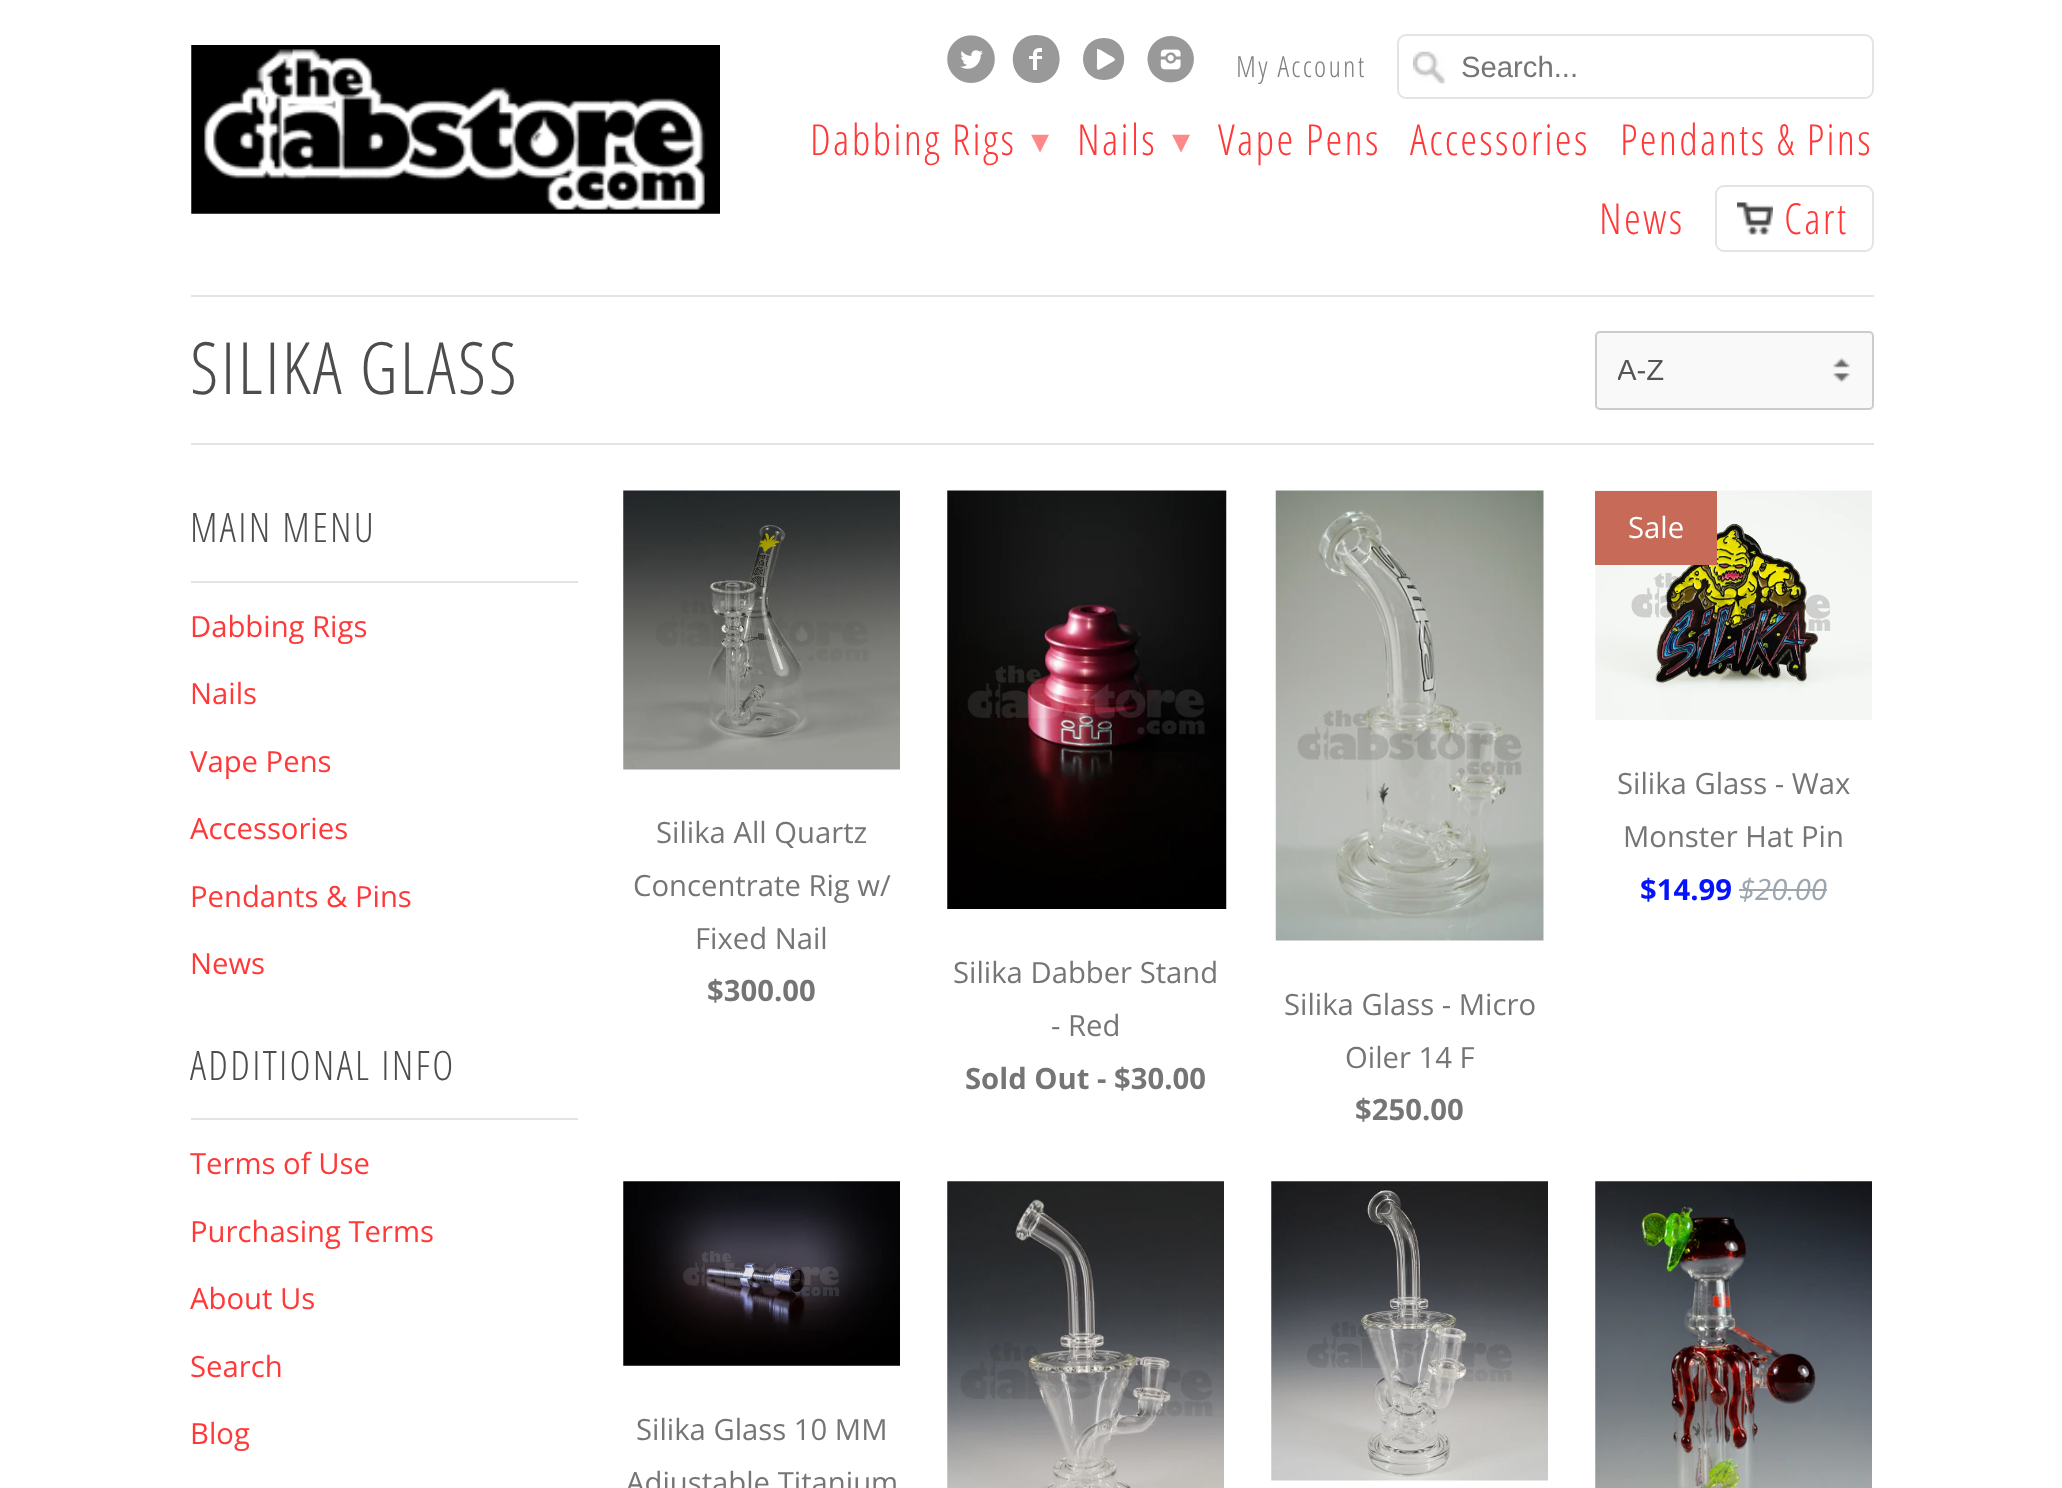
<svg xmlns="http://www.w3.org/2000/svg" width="2062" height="1488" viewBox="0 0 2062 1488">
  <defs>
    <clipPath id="clip1"><rect x="1618" y="353" width="187" height="34"/></clipPath>
  </defs>
  <rect width="100%" height="100%" fill="#ffffff"/>
  <rect x="191" y="295" width="1683" height="2" fill="#e4e4e4"/>
  <image x="191" y="45" width="529" height="169" href="img1.png"/>
  <image x="947" y="35" width="48" height="48" href="img2.png"/>
  <path d="M1036 35C1068 35 1067 83 1036 83C1005 83 1005 35 1036 35ZM1042 52V48C1035 48 1033 49 1033 56H1029V59H1033V70H1037V59H1042V56H1037C1037 51 1037 52 1042 52Z" fill="#999999"/>
  <path d="M1104 38C1131 38 1131 80 1104 80C1076 80 1076 38 1104 38ZM1114 61C1118 59 1109 55 1109 55C1107 54 1099 48 1097 49V50V62C1097 69 1096 72 1102 68Z" fill="#999999"/>
  <image x="1147" y="36" width="47" height="47" href="img3.png"/>
  <text x="1236" y="77" font-family="Open Sans Condensed" font-size="29.25" font-weight="300" letter-spacing="2.25" fill="#808080">My Account</text>
  <image x="1413" y="51" width="32" height="33" href="img4.png"/>
  <rect x="1398" y="35" width="475" height="63" rx="8" fill="none" stroke="#e4e4e4" stroke-width="2"/>
  <text x="1461" y="77" font-family="Liberation Sans" font-size="29.25" fill="#757575">Search...</text>
  <text x="810" y="155" font-family="Open Sans Condensed" font-size="42.75" font-weight="300" letter-spacing="2.25" fill="#ff3838">Dabbing Rigs</text>
  <text x="1031" y="153" font-family="DejaVu Sans" font-size="36" letter-spacing="2.25" fill="#ff8888">▾</text>
  <text x="1077" y="155" font-family="Open Sans Condensed" font-size="42.75" font-weight="300" letter-spacing="2.25" fill="#ff3838">Nails</text>
  <text x="1172" y="153" font-family="DejaVu Sans" font-size="36" letter-spacing="2.25" fill="#ff8888">▾</text>
  <text x="1218" y="155" font-family="Open Sans Condensed" font-size="42.75" font-weight="300" letter-spacing="2.25" fill="#ff3838">Vape Pens</text>
  <text x="1410" y="155" font-family="Open Sans Condensed" font-size="42.75" font-weight="300" letter-spacing="2.25" fill="#ff3838">Accessories</text>
  <text x="1620" y="155" font-family="Open Sans Condensed" font-size="42.75" font-weight="300" letter-spacing="2.25" fill="#ff3838">Pendants &amp; Pins</text>
  <text x="1599" y="234" font-family="Open Sans Condensed" font-size="42.75" font-weight="300" letter-spacing="2.25" fill="#ff3838">News</text>
  <image x="1737" y="202" width="36" height="33" href="img5.png"/>
  <rect x="1716" y="186" width="157" height="65" rx="8" fill="none" stroke="#e4e4e4" stroke-width="2"/>
  <text x="1784" y="234" font-family="Open Sans Condensed" font-size="42.75" font-weight="300" letter-spacing="2.25" fill="#ff3838">Cart</text>
  <rect x="191" y="443" width="1683" height="2" fill="#e4e4e4"/>
  <text x="190" y="394" font-family="Open Sans Condensed" font-size="72" font-weight="300" letter-spacing="2.25" fill="#4d4d4d">SILIKA GLASS</text>
  <rect x="1595" y="331" width="279" height="79" rx="5" fill="#f9f9f9"/>
  <image x="1833" y="357" width="17" height="26" href="img6.png"/>
  <rect x="1596" y="332" width="277" height="77" rx="4" fill="none" stroke="#cccccc" stroke-width="2"/>
  <g clip-path="url(#clip1)">
    <text x="1617" y="380" font-family="Liberation Sans" font-size="29.25" fill="#555555">A-Z</text>
  </g>
  <rect x="191" y="581" width="387" height="2" fill="#e4e4e4"/>
  <text x="190" y="542" font-family="Open Sans Condensed" font-size="40.5" font-weight="300" letter-spacing="2.25" fill="#4d4d4d">MAIN MENU</text>
  <text x="190" y="637" font-family="Open Sans" font-size="29.25" fill="#ff3838">Dabbing Rigs</text>
  <text x="190" y="704" font-family="Open Sans" font-size="29.25" fill="#ff3838">Nails</text>
  <text x="190" y="772" font-family="Open Sans" font-size="29.25" fill="#ff3838">Vape Pens</text>
  <text x="190" y="839" font-family="Open Sans" font-size="29.25" fill="#ff3838">Accessories</text>
  <text x="190" y="907" font-family="Open Sans" font-size="29.25" fill="#ff3838">Pendants &amp; Pins</text>
  <text x="190" y="974" font-family="Open Sans" font-size="29.25" fill="#ff3838">News</text>
  <rect x="191" y="1118" width="387" height="2" fill="#e4e4e4"/>
  <text x="190" y="1080" font-family="Open Sans Condensed" font-size="40.5" font-weight="300" letter-spacing="2.25" fill="#4d4d4d">ADDITIONAL INFO</text>
  <text x="190" y="1174" font-family="Open Sans" font-size="29.25" fill="#ff3838">Terms of Use</text>
  <text x="190" y="1242" font-family="Open Sans" font-size="29.25" fill="#ff3838">Purchasing Terms</text>
  <text x="190" y="1309" font-family="Open Sans" font-size="29.25" fill="#ff3838">About Us</text>
  <text x="190" y="1377" font-family="Open Sans" font-size="29.25" fill="#ff3838">Search</text>
  <text x="190" y="1444" font-family="Open Sans" font-size="29.25" fill="#ff3838">Blog</text>
  <image x="623" y="490" width="277" height="280" href="img7.png"/>
  <text x="656" y="843" font-family="Open Sans" font-size="29.25" fill="#757575">Silika All Quartz</text>
  <text x="633" y="896" font-family="Open Sans" font-size="29.25" fill="#757575">Concentrate Rig w/</text>
  <text x="695" y="949" font-family="Open Sans" font-size="29.25" fill="#757575">Fixed Nail</text>
  <text x="707" y="1001" font-family="Open Sans" font-size="29.25" font-weight="bold" fill="#757575">$300.00</text>
  <image x="1595" y="490" width="277" height="230" href="img8.png"/>
  <rect x="1595" y="491" width="122" height="74" fill="#c86a58"/>
  <text x="1628" y="538" font-family="Open Sans" font-size="29.25" fill="#ffffff">Sale</text>
  <text x="1617" y="794" font-family="Open Sans" font-size="29.25" fill="#757575">Silika Glass - Wax</text>
  <text x="1623" y="847" font-family="Open Sans" font-size="29.25" fill="#757575">Monster Hat Pin</text>
  <text x="1640" y="900" font-family="Open Sans" font-size="29.25" font-weight="bold" fill="#0512ff">$14.99</text>
  <text x="1739" y="900" font-family="Open Sans" font-size="29.25" font-style="italic" fill="#9da6ae">$20.00</text>
  <rect x="1739" y="889" width="88" height="2" fill="#9da6ae"/>
  <image x="947" y="490" width="280" height="419" href="img9.png"/>
  <text x="953" y="983" font-family="Open Sans" font-size="29.25" fill="#757575">Silika Dabber Stand</text>
  <text x="1051" y="1036" font-family="Open Sans" font-size="29.25" fill="#757575">- Red</text>
  <text x="965" y="1089" font-family="Open Sans" font-size="29.25" font-weight="bold" fill="#757575">Sold Out - $30.00</text>
  <image x="1275" y="490" width="269" height="451" href="img10.png"/>
  <text x="1284" y="1015" font-family="Open Sans" font-size="29.25" fill="#757575">Silika Glass - Micro</text>
  <text x="1345" y="1068" font-family="Open Sans" font-size="29.25" fill="#757575">Oiler 14 F</text>
  <text x="1355" y="1120" font-family="Open Sans" font-size="29.25" font-weight="bold" fill="#757575">$250.00</text>
  <image x="623" y="1181" width="277" height="185" href="img11.png"/>
  <text x="636" y="1440" font-family="Open Sans" font-size="29.25" fill="#757575">Silika Glass 10 MM</text>
  <text x="626" y="1493" font-family="Open Sans" font-size="29.25" fill="#757575">Adjustable Titanium</text>
  <image x="947" y="1181" width="277" height="307" href="img12.png"/>
  <image x="1271" y="1181" width="277" height="300" href="img13.png"/>
  <image x="1595" y="1181" width="277" height="307" href="img14.png"/>
</svg>
